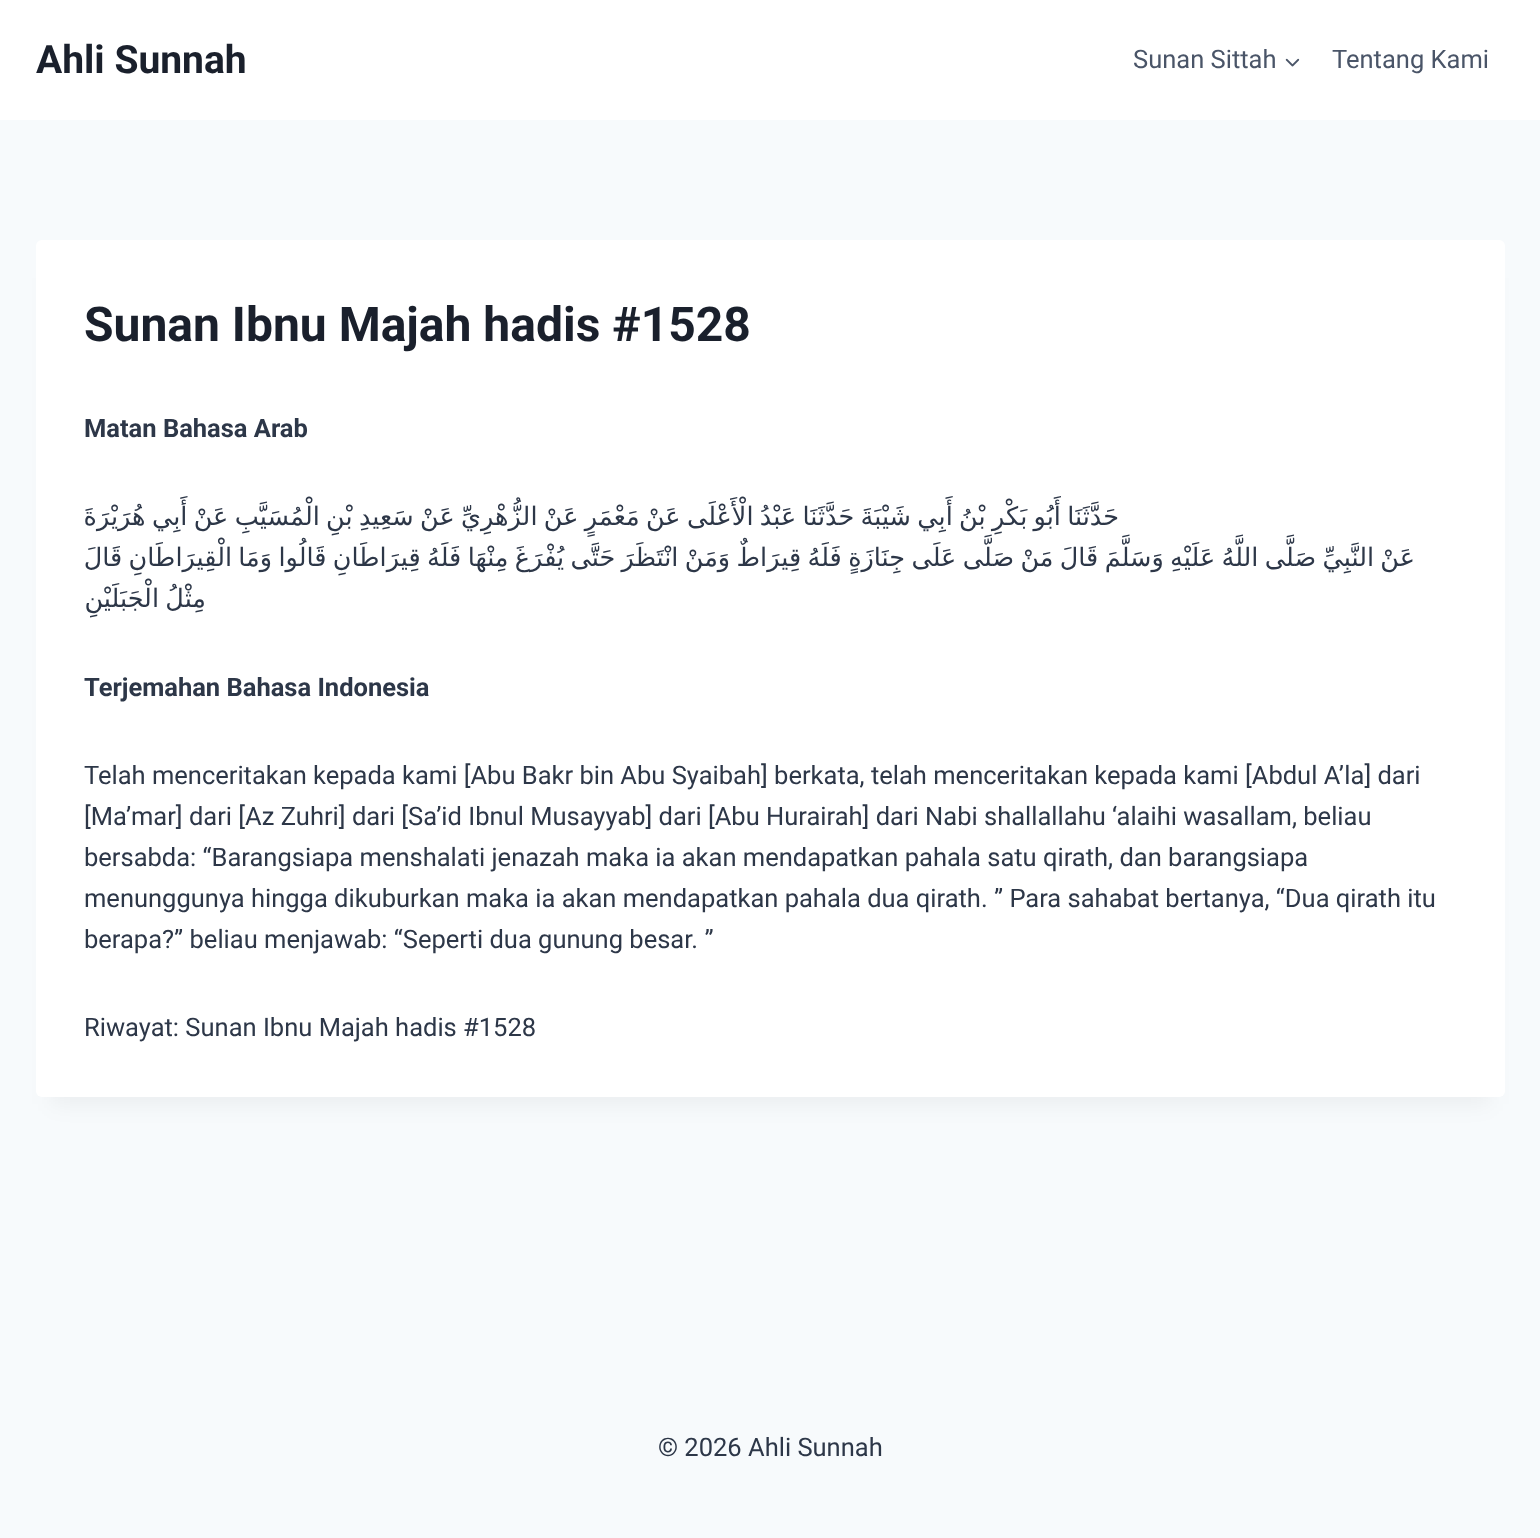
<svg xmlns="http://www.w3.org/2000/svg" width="1540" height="1538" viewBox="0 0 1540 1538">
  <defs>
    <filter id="blur1" x="-50%" y="-200%" width="200%" height="500%"><feGaussianBlur stdDeviation="11"/></filter>
  </defs>
  <rect width="100%" height="100%" fill="#f7fafc"/>
  <rect x="0" y="0" width="1540" height="120" fill="#ffffff"/>
  <text x="36" y="73" font-family="Roboto" font-size="39" font-weight="bold" fill="#1a202c">Ahli Sunnah</text>
  <text x="1133" y="68" font-family="Roboto" font-size="25.5" fill="#4a5568">Sunan Sittah</text>
  <image x="1285" y="58" width="15" height="9" href="img1.png"/>
  <text x="1332" y="68" font-family="Roboto" font-size="25.5" fill="#4a5568">Tentang Kami</text>
  <rect x="51" y="278" width="1439" height="826" fill="#000000" fill-opacity="0.05" filter="url(#blur1)"/>
  <rect x="36" y="240" width="1469" height="857" rx="6" fill="#ffffff"/>
  <text x="84" y="341" font-family="Roboto" font-size="48" font-weight="bold" fill="#1a202c">Sunan Ibnu Majah hadis #1528</text>
  <text x="84" y="437" font-family="Roboto" font-size="25.5" font-weight="bold" fill="#2d3748">Matan Bahasa Arab</text>
  <text x="1119" y="525" word-spacing="-1.75" font-family="DejaVu Sans" font-size="25.5" direction="rtl" fill="#2d3748">حَدَّثَنَا أَبُو بَكْرِ بْنُ أَبِي شَيْبَةَ حَدَّثَنَا عَبْدُ الْأَعْلَى عَنْ مَعْمَرٍ عَنْ الزُّهْرِيِّ عَنْ سَعِيدِ بْنِ الْمُسَيَّبِ عَنْ أَبِي هُرَيْرَةَ</text>
  <text x="1415" y="566" word-spacing="-1.75" font-family="DejaVu Sans" font-size="25.5" direction="rtl" fill="#2d3748">عَنْ النَّبِيِّ صَلَّى اللَّهُ عَلَيْهِ وَسَلَّمَ قَالَ مَنْ صَلَّى عَلَى جِنَازَةٍ فَلَهُ قِيرَاطٌ وَمَنْ انْتَظَرَ حَتَّى يُفْرَغَ مِنْهَا فَلَهُ قِيرَاطَانِ قَالُوا وَمَا الْقِيرَاطَانِ قَالَ</text>
  <text x="206" y="607" word-spacing="-1.75" font-family="DejaVu Sans" font-size="25.5" direction="rtl" fill="#2d3748">مِثْلُ الْجَبَلَيْنِ</text>
  <text x="84" y="696" font-family="Roboto" font-size="25.5" font-weight="bold" fill="#2d3748">Terjemahan Bahasa Indonesia</text>
  <text x="84" y="784" font-family="Roboto" font-size="25.5" fill="#2d3748">Telah menceritakan kepada kami [Abu Bakr bin Abu Syaibah] berkata, telah menceritakan kepada kami [Abdul A’la] dari</text>
  <text x="84" y="825" font-family="Roboto" font-size="25.5" fill="#2d3748">[Ma’mar] dari [Az Zuhri] dari [Sa’id Ibnul Musayyab] dari [Abu Hurairah] dari Nabi shallallahu ‘alaihi wasallam, beliau</text>
  <text x="84" y="866" font-family="Roboto" font-size="25.5" fill="#2d3748">bersabda: “Barangsiapa menshalati jenazah maka ia akan mendapatkan pahala satu qirath, dan barangsiapa</text>
  <text x="84" y="907" font-family="Roboto" font-size="25.5" fill="#2d3748">menunggunya hingga dikuburkan maka ia akan mendapatkan pahala dua qirath. ” Para sahabat bertanya, “Dua qirath itu</text>
  <text x="84" y="948" font-family="Roboto" font-size="25.5" fill="#2d3748">berapa?” beliau menjawab: “Seperti dua gunung besar. ”</text>
  <text x="84" y="1036" font-family="Roboto" font-size="25.5" fill="#2d3748">Riwayat: Sunan Ibnu Majah hadis #1528</text>
  <text x="658" y="1456" font-family="Roboto" font-size="25.5" fill="#2d3748">© 2026 Ahli Sunnah</text>
</svg>
